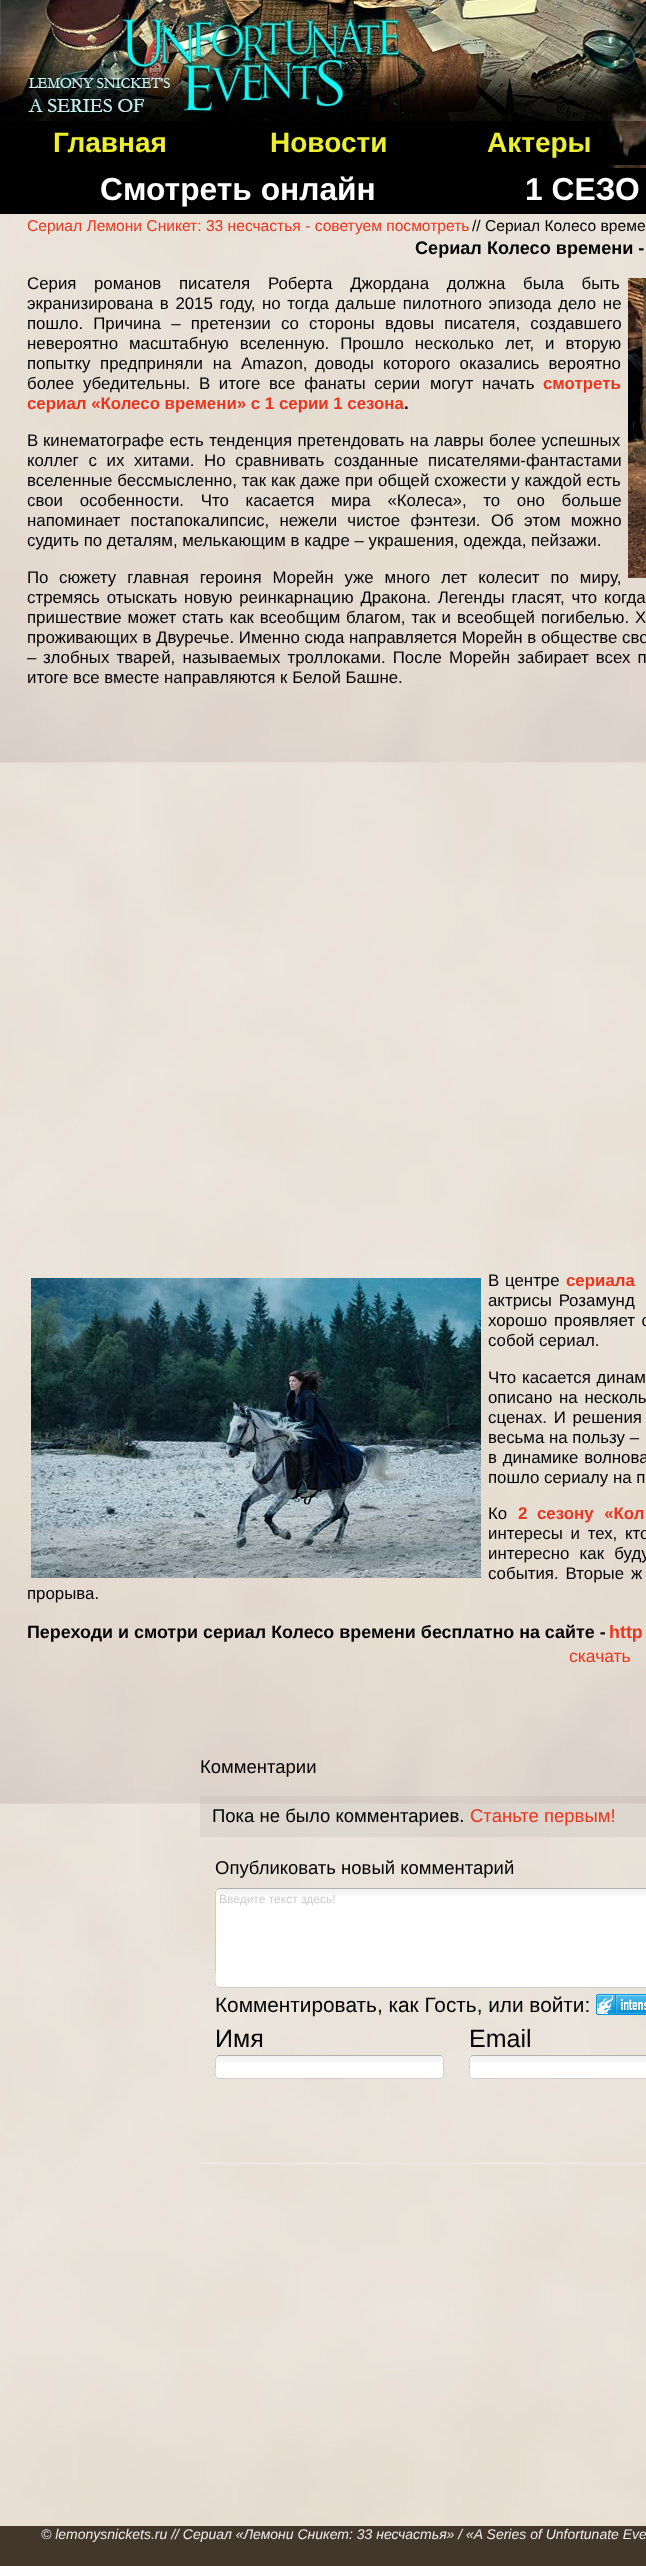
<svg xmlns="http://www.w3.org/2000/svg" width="646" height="2566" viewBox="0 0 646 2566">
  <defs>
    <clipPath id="clip1"><rect x="215" y="1888" width="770" height="104"/></clipPath>
  </defs>
  <rect width="100%" height="100%" fill="#ffffff"/>
  <image x="0" y="214" width="646" height="2352" href="img1.png"/>
  <image x="0" y="0" width="456" height="121" href="img2.png"/>
  <image x="456" y="0" width="190" height="121" href="img3.png"/>
  <image x="0" y="121" width="646" height="44" href="img4.png"/>
  <text x="53" y="152" font-family="Liberation Sans" font-size="28" font-weight="bold" fill="#ecee31">Главная</text>
  <text x="270" y="152" font-family="Liberation Sans" font-size="28" font-weight="bold" fill="#ecee31">Новости</text>
  <text x="487" y="152" font-family="Liberation Sans" font-size="28" font-weight="bold" fill="#ecee31">Актеры</text>
  <image x="0" y="165" width="646" height="49" href="img5.png"/>
  <text x="100" y="200" font-family="Liberation Sans" font-size="31.75" font-weight="bold" fill="#ffffff">Смотреть онлайн</text>
  <rect x="608" y="168" width="38" height="34" fill="#000000"/>
  <text x="525" y="200" font-family="Liberation Sans" font-size="31.75" font-weight="bold" fill="#ffffff">1 СЕЗО</text>
  <text x="27" y="231" font-family="Liberation Sans" font-size="15.6" fill="#ea361f">Сериал Лемони Сникет: 33 несчастья - советуем посмотреть</text>
  <text x="472" y="231" font-family="Liberation Sans" font-size="15.6" fill="#000000">// Сериал Колесо време</text>
  <text x="415" y="254" font-family="Liberation Sans" font-size="18.1" font-weight="bold" fill="#000000">Сериал Колесо времени -</text>
  <text x="27" y="289" font-family="Liberation Sans" font-size="16.85" fill="#000000">Серия</text>
  <text x="94" y="289" word-spacing="13" font-family="Liberation Sans" font-size="16.85" fill="#000000">романов писателя Роберта Джордана должна была быть</text>
  <image x="628" y="278" width="18" height="300" href="img6.png"/>
  <text x="27" y="309" word-spacing="2" font-family="Liberation Sans" font-size="16.85" fill="#000000">экранизирована в 2015 году,</text>
  <text x="262" y="309" word-spacing="2" font-family="Liberation Sans" font-size="16.85" fill="#000000">но тогда дальше пилотного эпизода дело не</text>
  <text x="27" y="329" word-spacing="5.5" font-family="Liberation Sans" font-size="16.85" fill="#000000">пошло. Причина – претензии со стороны</text>
  <text x="385" y="329" word-spacing="5.5" font-family="Liberation Sans" font-size="16.85" fill="#000000">вдовы писателя, создавшего</text>
  <text x="27" y="349" word-spacing="6.25" font-family="Liberation Sans" font-size="16.85" fill="#000000">невероятно масштабную вселенную. Прошло несколько</text>
  <text x="505" y="349" word-spacing="6.25" font-family="Liberation Sans" font-size="16.85" fill="#000000">лет, и вторую</text>
  <text x="27" y="369" word-spacing="5" font-family="Liberation Sans" font-size="16.85" fill="#000000">попытку предприняли на Amazon,</text>
  <text x="315" y="369" word-spacing="4.5" font-family="Liberation Sans" font-size="16.85" fill="#000000">доводы которого оказались вероятно</text>
  <text x="27" y="389" word-spacing="4" font-family="Liberation Sans" font-size="16.85" fill="#000000">более убедительны. В итоге все фанаты серии</text>
  <text x="430" y="389" word-spacing="4" font-family="Liberation Sans" font-size="16.85" fill="#000000">могут начать</text>
  <text x="543" y="389" font-family="Liberation Sans" font-size="16.85" font-weight="bold" fill="#ea361f">смотреть</text>
  <text x="27" y="409" font-family="Liberation Sans" font-size="16.85" font-weight="bold" fill="#ea361f">сериал «Колесо времени» с 1 серии 1 сезона</text>
  <text x="404" y="409" font-family="Liberation Sans" font-size="16.85" font-weight="bold" fill="#000000">.</text>
  <text x="27" y="446" font-family="Liberation Sans" font-size="16.85" fill="#000000">В</text>
  <text x="43" y="446" word-spacing="0.75" font-family="Liberation Sans" font-size="16.85" fill="#000000">кинематографе есть тенденция претендовать на лавры более успешных</text>
  <text x="27" y="466" word-spacing="5" font-family="Liberation Sans" font-size="16.85" fill="#000000">коллег с их</text>
  <text x="134" y="466" word-spacing="5" font-family="Liberation Sans" font-size="16.85" fill="#000000">хитами. Но сравнивать созданные писателями-фантастами</text>
  <text x="27" y="486" word-spacing="0.25" font-family="Liberation Sans" font-size="16.85" fill="#000000">вселенные бессмысленно, так как даже при общей схожести у каждой есть</text>
  <text x="27" y="506" word-spacing="12" font-family="Liberation Sans" font-size="16.85" fill="#000000">свои особенности. Что касается</text>
  <text x="331" y="506" word-spacing="12" font-family="Liberation Sans" font-size="16.85" fill="#000000">мира «Колеса», то оно больше</text>
  <text x="27" y="526" word-spacing="5.5" font-family="Liberation Sans" font-size="16.85" fill="#000000">напоминает постапокалипсис, нежели чистое фэнтези.</text>
  <text x="491" y="526" word-spacing="5.5" font-family="Liberation Sans" font-size="16.85" fill="#000000">Об этом можно</text>
  <text x="27" y="546" font-family="Liberation Sans" font-size="16.85" fill="#000000">судить по деталям, мелькающим в кадре – украшения, одежда, пейзажи.</text>
  <text x="27" y="583" font-family="Liberation Sans" font-size="16.85" fill="#000000">По</text>
  <text x="59" y="583" word-spacing="6.25" font-family="Liberation Sans" font-size="16.85" fill="#000000">сюжету главная героиня Морейн уже много лет колесит по миру,</text>
  <text x="27" y="603" word-spacing="2.25" font-family="Liberation Sans" font-size="16.85" fill="#000000">стремясь отыскать</text>
  <text x="184" y="603" word-spacing="2.25" font-family="Liberation Sans" font-size="16.85" fill="#000000">новую реинкарнацию Дракона. Легенды гласят, что когда</text>
  <text x="27" y="623" word-spacing="1.25" font-family="Liberation Sans" font-size="16.85" fill="#000000">пришествие может стать как всеобщим</text>
  <text x="346" y="623" word-spacing="1.25" font-family="Liberation Sans" font-size="16.85" fill="#000000">благом, так и всеобщей погибелью. Х</text>
  <text x="27" y="643" font-family="Liberation Sans" font-size="16.85" fill="#000000">проживающих в Двуречье. Именно сюда направляется Морейн в обществе сво</text>
  <text x="27" y="663" font-family="Liberation Sans" font-size="16.85" fill="#000000">–</text>
  <text x="43" y="663" word-spacing="2.5" font-family="Liberation Sans" font-size="16.85" fill="#000000">злобных тварей, называемых троллоками. После Морейн забирает всех п</text>
  <text x="27" y="683" font-family="Liberation Sans" font-size="16.85" fill="#000000">итоге все вместе направляются к Белой Башне.</text>
  <image x="31" y="1278" width="450" height="300" href="img7.png"/>
  <text x="488" y="1286" font-family="Liberation Sans" font-size="16.85" fill="#000000">В</text>
  <text x="505" y="1286" font-family="Liberation Sans" font-size="16.85" fill="#000000">центре</text>
  <text x="566" y="1286" word-spacing="2" font-family="Liberation Sans" font-size="16.85" font-weight="bold" fill="#ea361f">сериала</text>
  <text x="488" y="1306" word-spacing="2" font-family="Liberation Sans" font-size="16.85" fill="#000000">актрисы Розамунд</text>
  <text x="488" y="1326" word-spacing="2" font-family="Liberation Sans" font-size="16.85" fill="#000000">хорошо проявляет с</text>
  <text x="488" y="1346" font-family="Liberation Sans" font-size="16.85" fill="#000000">собой сериал.</text>
  <text x="488" y="1383" font-family="Liberation Sans" font-size="16.85" fill="#000000">Что</text>
  <text x="522" y="1383" word-spacing="1" font-family="Liberation Sans" font-size="16.85" fill="#000000">касается динам</text>
  <text x="488" y="1403" word-spacing="2" font-family="Liberation Sans" font-size="16.85" fill="#000000">описано на несколь</text>
  <text x="488" y="1423" word-spacing="2" font-family="Liberation Sans" font-size="16.85" fill="#000000">сценах. И решения</text>
  <text x="488" y="1443" font-family="Liberation Sans" font-size="16.85" fill="#000000">весьма на пользу –</text>
  <text x="488" y="1463" word-spacing="1" font-family="Liberation Sans" font-size="16.85" fill="#000000">в динамике волнова</text>
  <text x="488" y="1483" font-family="Liberation Sans" font-size="16.85" fill="#000000">пошло сериалу на п</text>
  <text x="488" y="1519" font-family="Liberation Sans" font-size="16.85" fill="#000000">Ко</text>
  <text x="518" y="1519" font-family="Liberation Sans" font-size="16.85" font-weight="bold" fill="#ea361f">2</text>
  <text x="537" y="1519" word-spacing="6" font-family="Liberation Sans" font-size="16.85" font-weight="bold" fill="#ea361f">сезону «Кол</text>
  <text x="488" y="1539" word-spacing="3" font-family="Liberation Sans" font-size="16.85" fill="#000000">интересы и тех, кто</text>
  <text x="488" y="1559" word-spacing="5.5" font-family="Liberation Sans" font-size="16.85" fill="#000000">интересно как буду</text>
  <text x="488" y="1579" word-spacing="2.25" font-family="Liberation Sans" font-size="16.85" fill="#000000">события. Вторые ж</text>
  <text x="27" y="1599" font-family="Liberation Sans" font-size="16.85" fill="#000000">прорыва.</text>
  <text x="27" y="1638" font-family="Liberation Sans" font-size="17.9" font-weight="bold" fill="#000000">Переходи и смотри сериал Колесо времени бесплатно на сайте -</text>
  <text x="609" y="1638" font-family="Liberation Sans" font-size="17.9" font-weight="bold" fill="#ea361f">http</text>
  <text x="569" y="1662" font-family="Liberation Sans" font-size="17.5" fill="#ea361f">скачать</text>
  <text x="200" y="1773" font-family="Liberation Sans" font-size="18.5" fill="#000000">Комментарии</text>
  <rect x="200" y="1796" width="446" height="41" fill="#9a9a9a" fill-opacity="0.15"/>
  <text x="212" y="1822" font-family="Liberation Sans" font-size="18.5" fill="#000000">Пока не было комментариев.</text>
  <text x="470" y="1822" font-family="Liberation Sans" font-size="18.5" fill="#ea361f">Станьте первым!</text>
  <text x="215" y="1874" font-family="Liberation Sans" font-size="18.5" fill="#000000">Опубликовать новый комментарий</text>
  <rect x="215" y="1888" width="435" height="100" rx="4" fill="#ffffff"/>
  <image x="216" y="1889" width="430" height="7" href="img8.png"/>
  <path d="M216.5 1889.5L219 1888.5H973L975.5 1889.5" fill="none" stroke="#b0b0b0"/>
  <g clip-path="url(#clip1)">
    <path d="M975.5 1889.5L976.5 1892V1968.5C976.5 1975.5 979 1987.5 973 1987.5H219C213 1987.5 215.5 1975.5 215.5 1968.5V1892L216.5 1889.5" fill="none" stroke="#cccccc"/>
  </g>
  <text x="219" y="1903" font-family="Liberation Sans" font-size="12" fill="#cccccc">Введите текст здесь!</text>
  <text x="215" y="2012" font-family="Liberation Sans" font-size="20.8" fill="#000000">Комментировать, как Гость, или войти:</text>
  <image x="596" y="1994" width="50" height="21" href="img9.png"/>
  <text x="215" y="2047" font-family="Liberation Sans" font-size="25" fill="#000000">Имя</text>
  <text x="469" y="2047" font-family="Liberation Sans" font-size="25" fill="#000000">Email</text>
  <rect x="215" y="2055" width="229" height="24" rx="4" fill="#ffffff"/>
  <image x="216" y="2056" width="228" height="7" href="img10.png"/>
  <path d="M216.5 2056.5C217 2056 218 2055.5 219 2055.5H440C441 2055.5 442 2056 442.5 2056.5" fill="none" stroke="#b0b0b0"/>
  <path d="M442.5 2056.5C444.5 2058.5 443.5 2064.5 443.5 2067C443.5 2069.5 445 2076 442 2078L440 2078.5H219L217 2078C214 2076 215.5 2069.5 215.5 2067C215.5 2064.5 214.5 2058.5 216.5 2056.5" fill="none" stroke="#cccccc"/>
  <rect x="469" y="2055" width="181" height="24" rx="4" fill="#ffffff"/>
  <image x="470" y="2056" width="176" height="7" href="img11.png"/>
  <path d="M470.5 2056.5C471 2056 472 2055.5 473 2055.5H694C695 2055.5 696 2056 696.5 2056.5" fill="none" stroke="#b0b0b0"/>
  <path d="M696.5 2056.5C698.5 2058.5 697.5 2064.5 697.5 2067C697.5 2069.5 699 2076 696 2078L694 2078.5H473L471 2078C468 2076 469.5 2069.5 469.5 2067C469.5 2064.5 468.5 2058.5 470.5 2056.5" fill="none" stroke="#cccccc"/>
  <rect x="200" y="2163" width="446" height="1" fill="#eeeeee"/>
  <rect x="0" y="2526" width="646" height="40" fill="#312318" fill-opacity="0.9"/>
  <text x="41" y="2539" font-family="Liberation Sans" font-size="14" font-style="italic" fill="#eeeeee">© lemonysnickets.ru // Сериал «Лемони Сникет: 33 несчастья» / «A Series of Unfortunate Eve</text>
</svg>
